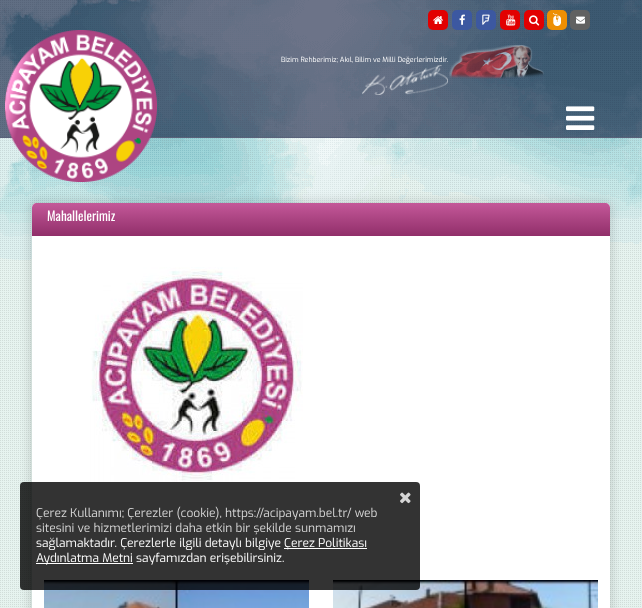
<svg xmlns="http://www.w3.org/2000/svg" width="642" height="608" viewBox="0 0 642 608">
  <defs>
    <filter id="blur1" x="-50%" y="-200%" width="200%" height="500%"><feGaussianBlur stdDeviation="5"/></filter>
    <linearGradient id="g1" gradientUnits="userSpaceOnUse" x1="321" y1="203" x2="321" y2="236"><stop offset="0" stop-color="#c45899"/><stop offset="0.99" stop-color="#912f6a"/><stop offset="1" stop-color="#912f6a"/></linearGradient>
  </defs>
  <rect width="100%" height="100%" fill="#ffffff"/>
  <image x="0" y="0" width="642" height="608" href="img1.png"/>
  <rect x="0" y="0" width="642" height="137" fill="#0d173a" fill-opacity="0.6"/>
  <rect x="0" y="137" width="642" height="1" fill="#5a637b"/>
  <image x="5" y="30" width="152" height="152" href="img2.png"/>
  <rect x="428" y="10" width="20" height="20" rx="5" fill="#e20001"/>
  <image x="433" y="16" width="10" height="8" href="img3.png"/>
  <rect x="452" y="10" width="20" height="20" rx="5" fill="#3c58a1"/>
  <image x="459" y="14" width="6" height="11" href="img4.png"/>
  <rect x="476" y="10" width="20" height="20" rx="5" fill="#3c58a1"/>
  <image x="482" y="14" width="8" height="11" href="img5.png"/>
  <rect x="500" y="10" width="20" height="20" rx="5" fill="#e20001"/>
  <image x="506" y="14" width="10" height="12" href="img6.png"/>
  <rect x="524" y="10" width="20" height="20" rx="5" fill="#e20001"/>
  <image x="529" y="15" width="11" height="11" href="img7.png"/>
  <rect x="547" y="10" width="20" height="20" rx="5" fill="#ed8f03"/>
  <image x="553" y="13" width="8" height="13" href="img8.png"/>
  <rect x="570" y="10" width="20" height="20" rx="5" fill="#616161"/>
  <image x="576" y="16" width="9" height="8" href="img9.png"/>
  <text x="281" y="62" font-family="Exo" font-size="7" fill="#ffffff">Bizim Rehberimiz; Akıl, Bilim ve Milli Değerlerimizdir.</text>
  <image x="449" y="45" width="95" height="34" href="img10.png"/>
  <image x="362" y="65" width="86" height="30" href="img11.png"/>
  <image x="566" y="106" width="29" height="24" href="img12.png"/>
  <rect x="29" y="200" width="584" height="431" rx="8" fill="#000000" fill-opacity="0.12" filter="url(#blur1)"/>
  <path d="M37 203H605C608 203 610 205 610 208V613H32V208C32 205 34 203 37 203Z" fill="#ffffff"/>
  <path d="M37 203H605C608 203 610 205 610 208V236H32V208C32 205 34 203 37 203Z" fill="url(#g1)"/>
  <text x="47" y="221" font-family="Oswald" font-size="13" fill="#ffffff">Mahallelerimiz</text>
  <image x="90" y="267" width="213" height="215" href="img13.png"/>
  <image x="44" y="580" width="265" height="28" href="img14.png"/>
  <image x="333" y="580" width="265" height="28" href="img15.png"/>
  <rect x="20" y="482" width="400" height="108" rx="4" fill="#000000" fill-opacity="0.8"/>
  <image x="400" y="492" width="11" height="12" href="img16.png"/>
  <text x="36" y="517" font-family="Exo" font-size="12" fill="#d6d6d6">Çerez Kullanımı; Çerezler (cookie), https://acipayam.bel.tr/ web</text>
  <text x="36" y="532" font-family="Exo" font-size="12" fill="#d6d6d6">sitesini ve hizmetlerimizi daha etkin bir şekilde sunmamızı</text>
  <text x="36" y="547" font-family="Exo" font-size="12" fill="#ffffff">sağlamaktadır. Çerezlerle ilgili detaylı bilgiye</text>
  <rect x="284" y="548" width="83" height="1" fill="#ffffff"/>
  <text x="284" y="547" font-family="Exo" font-size="12" fill="#ffffff">Çerez Politikası</text>
  <rect x="36" y="563" width="97" height="1" fill="#ffffff"/>
  <text x="36" y="562" font-family="Exo" font-size="12" fill="#ffffff">Aydınlatma Metni sayfamızdan erişebilirsiniz.</text>
</svg>
